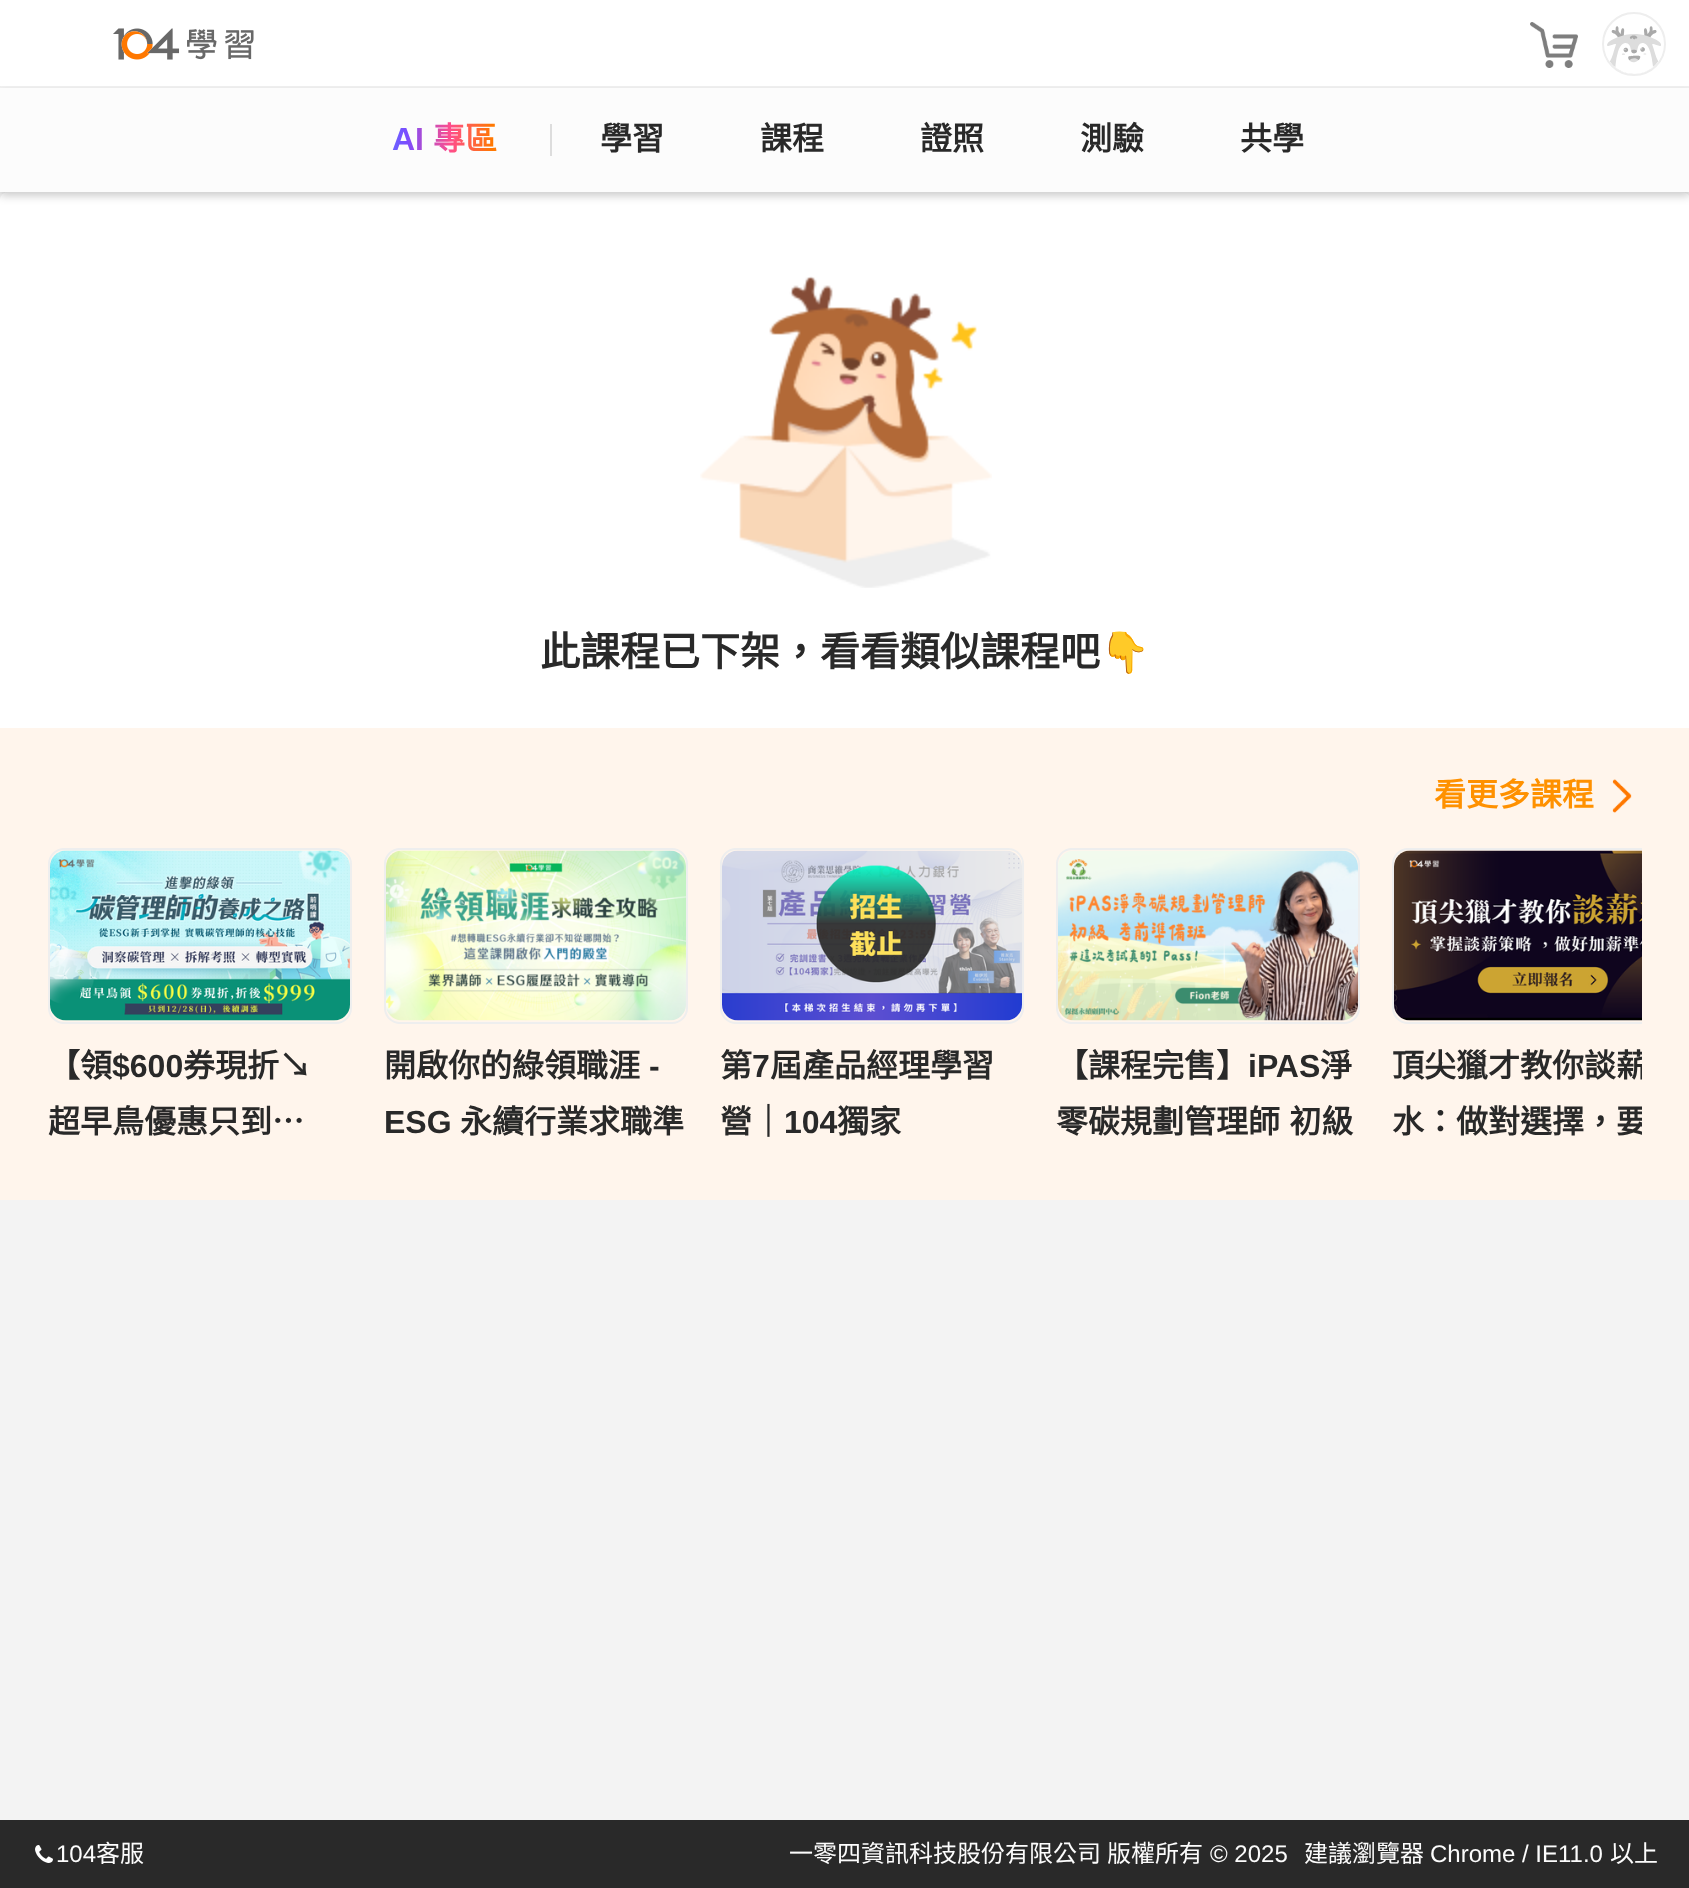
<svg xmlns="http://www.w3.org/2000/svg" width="1689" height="1888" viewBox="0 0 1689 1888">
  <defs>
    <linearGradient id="g1" gradientUnits="userSpaceOnUse" x1="354" y1="140" x2="536" y2="140"><stop offset="0.05" stop-color="#4d90ff"/><stop offset="0.29" stop-color="#7a4cff"/><stop offset="0.53" stop-color="#ff4d8b"/><stop offset="0.76" stop-color="#ff7800"/><stop offset="1" stop-color="#ffa43c"/></linearGradient>
    <filter id="blur1" x="-50%" y="-200%" width="200%" height="500%"><feGaussianBlur stdDeviation="4"/></filter>
    <clipPath id="clip1"><rect x="48" y="848" width="1594" height="312"/></clipPath>
    <clipPath id="clip2"><rect x="1392" y="1040" width="250" height="112"/></clipPath>
  </defs>
  <rect width="100%" height="100%" fill="#f3f3f3"/>
  <rect x="0" y="192" width="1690" height="1008" rx="8" fill="#ffffff"/>
  <rect x="0" y="92" width="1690" height="104" fill="#000000" fill-opacity="0.2" filter="url(#blur1)"/>
  <rect x="0" y="0" width="1689" height="86" fill="#ffffff"/>
  <rect x="0" y="86" width="1" height="1" fill="#eeeeee"/>
  <image x="113" y="28" width="141" height="32" href="img1.png"/>
  <image x="1530" y="22" width="48" height="46" href="img2.png"/>
  <circle cx="1634" cy="44" r="31" fill="none" stroke="#eeeeee" stroke-width="2"/>
  <image x="1607" y="26" width="54" height="48" href="img3.png"/>
  <rect x="0" y="88" width="1689" height="104" fill="#fcfcfc"/>
  <text x="392" y="150" font-family="Liberation Sans" font-size="32" font-weight="bold" fill="url(#g1)">AI</text>
  <text x="433" y="150" font-family="Noto Sans CJK TC" font-size="32" font-weight="bold" fill="url(#g1)">專區</text>
  <rect x="550" y="124" width="2" height="32" fill="#dddddd"/>
  <text x="600" y="150" font-family="Noto Sans CJK TC" font-size="32" font-weight="bold" fill="#292929">學習</text>
  <text x="760" y="150" font-family="Noto Sans CJK TC" font-size="32" font-weight="bold" fill="#292929">課程</text>
  <text x="920" y="150" font-family="Noto Sans CJK TC" font-size="32" font-weight="bold" fill="#292929">證照</text>
  <text x="1080" y="150" font-family="Noto Sans CJK TC" font-size="32" font-weight="bold" fill="#292929">測驗</text>
  <text x="1240" y="150" font-family="Noto Sans CJK TC" font-size="32" font-weight="bold" fill="#292929">共學</text>
  <image x="700" y="276" width="292" height="312" href="img4.png"/>
  <text x="540" y="666" font-family="Noto Sans CJK TC" font-size="40" font-weight="bold" fill="#292929">此課程已下架，看看類似課程吧</text>
  <text x="1100" y="666" font-family="Noto Color Emoji" font-size="40" font-weight="bold" fill="#292929">👇</text>
  <rect x="0" y="728" width="1689" height="472" fill="#fff5ec"/>
  <text x="1434" y="806" font-family="Noto Sans CJK TC" font-size="32" font-weight="bold" fill="#ff9100">看更多課程</text>
  <image x="1612" y="779" width="20" height="34" href="img5.png"/>
  <rect x="49" y="849" width="302" height="174" rx="15" fill="none" stroke="#eeeeee" stroke-width="2"/>
  <image x="50" y="850" width="300" height="171" href="img6.png"/>
  <text x="48" y="1077" font-family="Noto Sans CJK TC" font-size="32" font-weight="bold" fill="#292929">【領</text>
  <text x="112" y="1077" font-family="Liberation Sans" font-size="32" font-weight="bold" fill="#292929">$600</text>
  <text x="183" y="1077" font-family="Noto Sans CJK TC" font-size="32" font-weight="bold" fill="#292929">券現折↘</text>
  <text x="48" y="1133" font-family="Noto Sans CJK TC" font-size="32" font-weight="bold" fill="#292929">超早鳥優惠只到…</text>
  <rect x="385" y="849" width="302" height="174" rx="15" fill="none" stroke="#eeeeee" stroke-width="2"/>
  <image x="386" y="850" width="300" height="171" href="img7.png"/>
  <text x="384" y="1077" font-family="Noto Sans CJK TC" font-size="32" font-weight="bold" fill="#292929">開啟你的綠領職涯</text>
  <text x="649" y="1077" font-family="Liberation Sans" font-size="32" font-weight="bold" fill="#292929">-</text>
  <text x="384" y="1133" font-family="Liberation Sans" font-size="32" font-weight="bold" fill="#292929">ESG</text>
  <text x="460" y="1133" font-family="Noto Sans CJK TC" font-size="32" font-weight="bold" fill="#292929">永續行業求職準</text>
  <rect x="721" y="849" width="302" height="174" rx="15" fill="none" stroke="#eeeeee" stroke-width="2"/>
  <image x="722" y="850" width="300" height="171" href="img8.png"/>
  <text x="720" y="1077" font-family="Noto Sans CJK TC" font-size="32" font-weight="bold" fill="#292929">第</text>
  <text x="752" y="1077" font-family="Liberation Sans" font-size="32" font-weight="bold" fill="#292929">7</text>
  <text x="770" y="1077" font-family="Noto Sans CJK TC" font-size="32" font-weight="bold" fill="#292929">屆產品經理學習</text>
  <text x="720" y="1133" font-family="Noto Sans CJK TC" font-size="32" font-weight="bold" fill="#292929">營｜</text>
  <text x="784" y="1133" font-family="Liberation Sans" font-size="32" font-weight="bold" fill="#292929">104</text>
  <text x="837" y="1133" font-family="Noto Sans CJK TC" font-size="32" font-weight="bold" fill="#292929">獨家</text>
  <rect x="1057" y="849" width="302" height="174" rx="15" fill="none" stroke="#eeeeee" stroke-width="2"/>
  <image x="1058" y="850" width="300" height="171" href="img9.png"/>
  <text x="1056" y="1077" font-family="Noto Sans CJK TC" font-size="32" font-weight="bold" fill="#292929">【課程完售】</text>
  <text x="1248" y="1077" font-family="Liberation Sans" font-size="32" font-weight="bold" fill="#292929">iPAS</text>
  <text x="1320" y="1077" font-family="Noto Sans CJK TC" font-size="32" font-weight="bold" fill="#292929">淨</text>
  <text x="1056" y="1133" word-spacing="2" font-family="Noto Sans CJK TC" font-size="32" font-weight="bold" fill="#292929">零碳規劃管理師 初級</text>
  <g clip-path="url(#clip1)">
    <rect x="1393" y="849" width="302" height="174" rx="15" fill="none" stroke="#eeeeee" stroke-width="2"/>
  </g>
  <image x="1394" y="850" width="248" height="171" href="img10.png"/>
  <g clip-path="url(#clip2)">
    <text x="1392" y="1077" font-family="Noto Sans CJK TC" font-size="32" font-weight="bold" fill="#292929">頂尖獵才教你談薪</text>
    <text x="1392" y="1133" font-family="Noto Sans CJK TC" font-size="32" font-weight="bold" fill="#292929">水：做對選擇，要</text>
  </g>
  <rect x="0" y="1820" width="1689" height="68" fill="#292929"/>
  <image x="35" y="1845" width="18" height="18" href="img11.png"/>
  <text x="56" y="1862" font-family="Liberation Sans" font-size="24" fill="#fcfcfc">104</text>
  <text x="96" y="1862" font-family="Noto Sans CJK TC" font-size="24" fill="#fcfcfc">客服</text>
  <text x="789" y="1862" font-family="Noto Sans CJK TC" font-size="24" fill="#fcfcfc">一零四資訊科技股份有限公司</text>
  <text x="1107" y="1862" font-family="Noto Sans CJK TC" font-size="24" fill="#fcfcfc">版權所有</text>
  <text x="1210" y="1862" font-family="Liberation Sans" font-size="24" fill="#fcfcfc">© 2025</text>
  <text x="1304" y="1862" font-family="Noto Sans CJK TC" font-size="24" fill="#fcfcfc">建議瀏覽器</text>
  <text x="1430" y="1862" font-family="Liberation Sans" font-size="24" fill="#fcfcfc">Chrome / IE11.0</text>
  <text x="1610" y="1862" font-family="Noto Sans CJK TC" font-size="24" fill="#fcfcfc">以上</text>
</svg>
